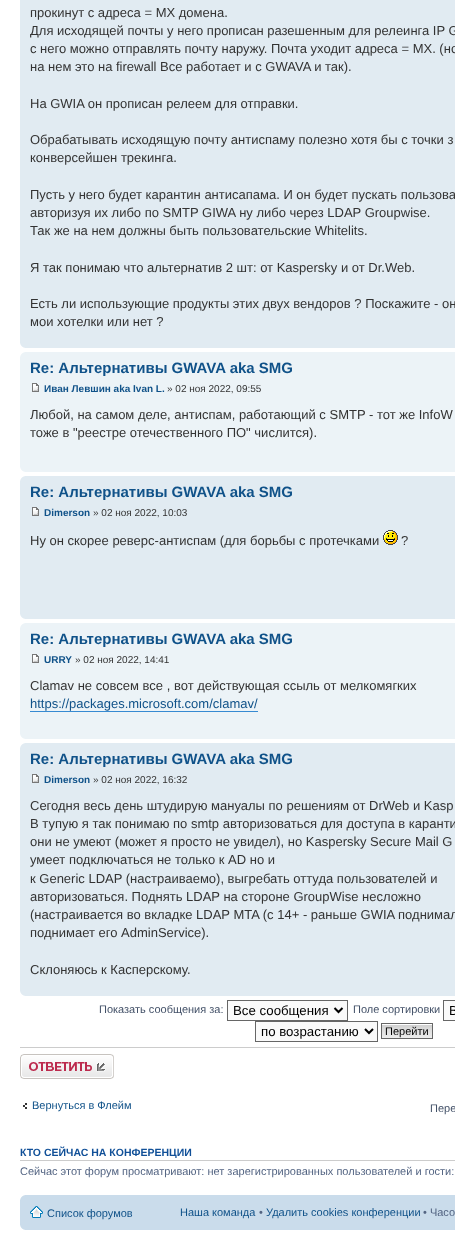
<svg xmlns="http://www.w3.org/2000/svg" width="455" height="1252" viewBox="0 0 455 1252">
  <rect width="100%" height="100%" fill="#ffffff"/>
  <rect x="20" y="0" width="435" height="348" fill="#e1ebf2"/>
  <text x="30" y="17" font-family="Liberation Sans" font-size="13" fill="#333333">прокинут с адреса = MX домена.</text>
  <text x="30" y="35" font-family="Liberation Sans" font-size="13" fill="#333333">Для исходящей почты у него прописан разешенным для релеинга IP G</text>
  <text x="30" y="53" font-family="Liberation Sans" font-size="13" fill="#333333">с него можно отправлять почту наружу. Почта уходит адреса = MX. (но</text>
  <text x="30" y="71" font-family="Liberation Sans" font-size="13" fill="#333333">на нем это на firewall Все работает и с GWAVA и так).</text>
  <text x="30" y="108" font-family="Liberation Sans" font-size="13" fill="#333333">На GWIA он прописан релеем для отправки.</text>
  <text x="30" y="144" font-family="Liberation Sans" font-size="13" fill="#333333">Обрабатывать исходящую почту антиспаму полезно хотя бы с точки з</text>
  <text x="30" y="162" font-family="Liberation Sans" font-size="13" fill="#333333">конверсейшен трекинга.</text>
  <text x="30" y="199" font-family="Liberation Sans" font-size="13" fill="#333333">Пусть у него будет карантин антисапама. И он будет пускать пользова</text>
  <text x="30" y="217" font-family="Liberation Sans" font-size="13" fill="#333333">авторизуя их либо по SMTP GIWA ну либо через LDAP Groupwise.</text>
  <text x="30" y="235" font-family="Liberation Sans" font-size="13" fill="#333333">Так же на нем должны быть пользовательские Whitelits.</text>
  <text x="30" y="272" font-family="Liberation Sans" font-size="13" fill="#333333">Я так понимаю что альтернатив 2 шт: от Kaspersky и от Dr.Web.</text>
  <text x="30" y="308" font-family="Liberation Sans" font-size="13" fill="#333333">Есть ли использующие продукты этих двух вендоров ? Поскажите - он</text>
  <text x="30" y="326" font-family="Liberation Sans" font-size="13" fill="#333333">мои хотелки или нет ?</text>
  <image x="20" y="343" width="5" height="5" href="img1.png"/>
  <rect x="20" y="352" width="435" height="120" fill="#ecf3f7"/>
  <image x="20" y="352" width="5" height="5" href="img2.png"/>
  <text x="30" y="373" font-family="Liberation Sans" font-size="15" font-weight="bold" fill="#105289">Re: Альтернативы GWAVA aka SMG</text>
  <image x="32" y="383" width="7" height="9" href="img3.png"/>
  <text x="44" y="392" font-family="Liberation Sans" font-size="10" font-weight="bold" fill="#105289">Иван Левшин aka Ivan L.</text>
  <text x="167" y="392" font-family="Liberation Sans" font-size="10" fill="#333333">» 02 ноя 2022, 09:55</text>
  <text x="30" y="419" font-family="Liberation Sans" font-size="13" fill="#333333">Любой, на самом деле, антиспам, работающий с SMTP - тот же InfoW</text>
  <text x="30" y="437" font-family="Liberation Sans" font-size="13" fill="#333333">тоже в "реестре отечественного ПО" числится).</text>
  <image x="20" y="467" width="5" height="5" href="img4.png"/>
  <rect x="20" y="476" width="435" height="143" fill="#e1ebf2"/>
  <image x="20" y="476" width="5" height="5" href="img5.png"/>
  <text x="30" y="497" font-family="Liberation Sans" font-size="15" font-weight="bold" fill="#105289">Re: Альтернативы GWAVA aka SMG</text>
  <image x="32" y="507" width="7" height="9" href="img6.png"/>
  <text x="44" y="516" font-family="Liberation Sans" font-size="10" font-weight="bold" fill="#105289">Dimerson</text>
  <text x="93" y="516" font-family="Liberation Sans" font-size="10" fill="#333333">» 02 ноя 2022, 10:03</text>
  <text x="30" y="545" font-family="Liberation Sans" font-size="13" fill="#333333">Ну он скорее реверс-антиспам (для борьбы с протечками</text>
  <image x="383" y="530" width="15" height="15" href="img7.png"/>
  <text x="401" y="545" font-family="Liberation Sans" font-size="13" fill="#333333">?</text>
  <image x="20" y="614" width="5" height="5" href="img1.png"/>
  <rect x="20" y="623" width="435" height="116" fill="#ecf3f7"/>
  <image x="20" y="623" width="5" height="5" href="img2.png"/>
  <text x="30" y="644" font-family="Liberation Sans" font-size="15" font-weight="bold" fill="#105289">Re: Альтернативы GWAVA aka SMG</text>
  <image x="32" y="654" width="7" height="9" href="img3.png"/>
  <text x="44" y="663" font-family="Liberation Sans" font-size="10" font-weight="bold" fill="#105289">URRY</text>
  <text x="75" y="663" font-family="Liberation Sans" font-size="10" fill="#333333">» 02 ноя 2022, 14:41</text>
  <text x="30" y="690" font-family="Liberation Sans" font-size="13" fill="#333333">Clamav не совсем все , вот действующая ссыль от мелкомягких</text>
  <text x="30" y="708" font-family="Liberation Sans" font-size="13" fill="#105289">https://packages.microsoft.com/clamav/</text>
  <rect x="30" y="711" width="228" height="1" fill="#368ad2"/>
  <image x="20" y="734" width="5" height="5" href="img4.png"/>
  <rect x="20" y="743" width="435" height="253" fill="#e1ebf2"/>
  <image x="20" y="743" width="5" height="5" href="img5.png"/>
  <text x="30" y="764" font-family="Liberation Sans" font-size="15" font-weight="bold" fill="#105289">Re: Альтернативы GWAVA aka SMG</text>
  <image x="32" y="774" width="7" height="9" href="img6.png"/>
  <text x="44" y="783" font-family="Liberation Sans" font-size="10" font-weight="bold" fill="#105289">Dimerson</text>
  <text x="93" y="783" font-family="Liberation Sans" font-size="10" fill="#333333">» 02 ноя 2022, 16:32</text>
  <text x="30" y="810" font-family="Liberation Sans" font-size="13" fill="#333333">Сегодня весь день штудирую мануалы по решениям от DrWeb и Kasp</text>
  <text x="30" y="828" font-family="Liberation Sans" font-size="13" fill="#333333">В тупую я так понимаю по smtp авторизоваться для доступа в каранти</text>
  <text x="30" y="846" font-family="Liberation Sans" font-size="13" fill="#333333">они не умеют (может я просто не увидел), но Kaspersky Secure Mail G</text>
  <text x="30" y="864" font-family="Liberation Sans" font-size="13" fill="#333333">умеет подключаться не только к AD но и</text>
  <text x="30" y="883" font-family="Liberation Sans" font-size="13" fill="#333333">к Generic LDAP (настраиваемо), выгребать оттуда пользователей и</text>
  <text x="30" y="901" font-family="Liberation Sans" font-size="13" fill="#333333">авторизоваться. Поднять LDAP на стороне GroupWise несложно</text>
  <text x="30" y="919" font-family="Liberation Sans" font-size="13" fill="#333333">(настраивается во вкладке LDAP MTA (с 14+ - раньше GWIA поднимал</text>
  <text x="30" y="937" font-family="Liberation Sans" font-size="13" fill="#333333">поднимает его AdminService).</text>
  <text x="30" y="974" font-family="Liberation Sans" font-size="13" fill="#333333">Склоняюсь к Касперскому.</text>
  <image x="20" y="991" width="5" height="5" href="img1.png"/>
  <text x="99" y="1013" font-family="Liberation Sans" font-size="11" fill="#425067">Показать сообщения за:</text>
  <rect x="227.5" y="1000.5" width="120" height="20" fill="#fafafa" stroke="#666666"/>
  <path d="M334.5 1008L338.5 1012L342.5 1008" fill="none" stroke="#000000" stroke-width="2"/>
  <text x="233" y="1015" font-family="Liberation Sans" font-size="13.25" fill="#000000">Все сообщения</text>
  <text x="353" y="1013" font-family="Liberation Sans" font-size="11" fill="#425067">Поле сортировки</text>
  <rect x="443.5" y="1000.5" width="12" height="20" fill="#fafafa" stroke="#666666"/>
  <text x="449" y="1015" font-family="Liberation Sans" font-size="13.25" fill="#000000">В</text>
  <rect x="255.5" y="1021.5" width="122" height="20" fill="#fafafa" stroke="#666666"/>
  <path d="M365 1029L369 1033L373 1029" fill="none" stroke="#000000" stroke-width="2"/>
  <text x="261" y="1036" font-family="Liberation Sans" font-size="13.25" fill="#000000">по возрастанию</text>
  <image x="382" y="1024" width="50" height="14" href="img8.png"/>
  <rect x="381.5" y="1023.5" width="51" height="15" fill="none" stroke="#666666"/>
  <text x="385" y="1035" font-family="Liberation Sans" font-size="11" fill="#000000">Перейти</text>
  <rect x="20" y="1047" width="435" height="1" fill="#cccccc"/>
  <image x="20" y="1054" width="94" height="25" href="img9.png"/>
  <image x="23" y="1103" width="4" height="6" href="img10.png"/>
  <text x="32" y="1109" font-family="Liberation Sans" font-size="11" fill="#105289">Вернуться в Флейм</text>
  <text x="430" y="1112" font-family="Liberation Sans" font-size="11" fill="#425067">Пере</text>
  <rect x="20" y="1160" width="435" height="1" fill="#cccccc"/>
  <text x="20" y="1156" font-family="Liberation Sans" font-size="10.5" font-weight="bold" fill="#115098">КТО СЕЙЧАС НА КОНФЕРЕНЦИИ</text>
  <text x="20" y="1175" font-family="Liberation Sans" font-size="11" fill="#536482">Сейчас этот форум просматривают: нет зарегистрированных пользователей и гости:</text>
  <rect x="20" y="1195" width="435" height="35" fill="#cadceb"/>
  <image x="20" y="1195" width="5" height="5" href="img11.png"/>
  <image x="30" y="1206" width="13" height="12" href="img12.png"/>
  <text x="47" y="1217" font-family="Liberation Sans" font-size="11" fill="#105289">Список форумов</text>
  <text x="180" y="1216" font-family="Liberation Sans" font-size="11" fill="#105289">Наша команда</text>
  <text x="259" y="1216" font-family="Liberation Sans" font-size="11" fill="#536482">•</text>
  <text x="266" y="1216" font-family="Liberation Sans" font-size="11" fill="#105289">Удалить cookies конференции</text>
  <text x="423" y="1216" font-family="Liberation Sans" font-size="11" fill="#536482">• Часо</text>
  <image x="20" y="1225" width="5" height="5" href="img13.png"/>
</svg>
